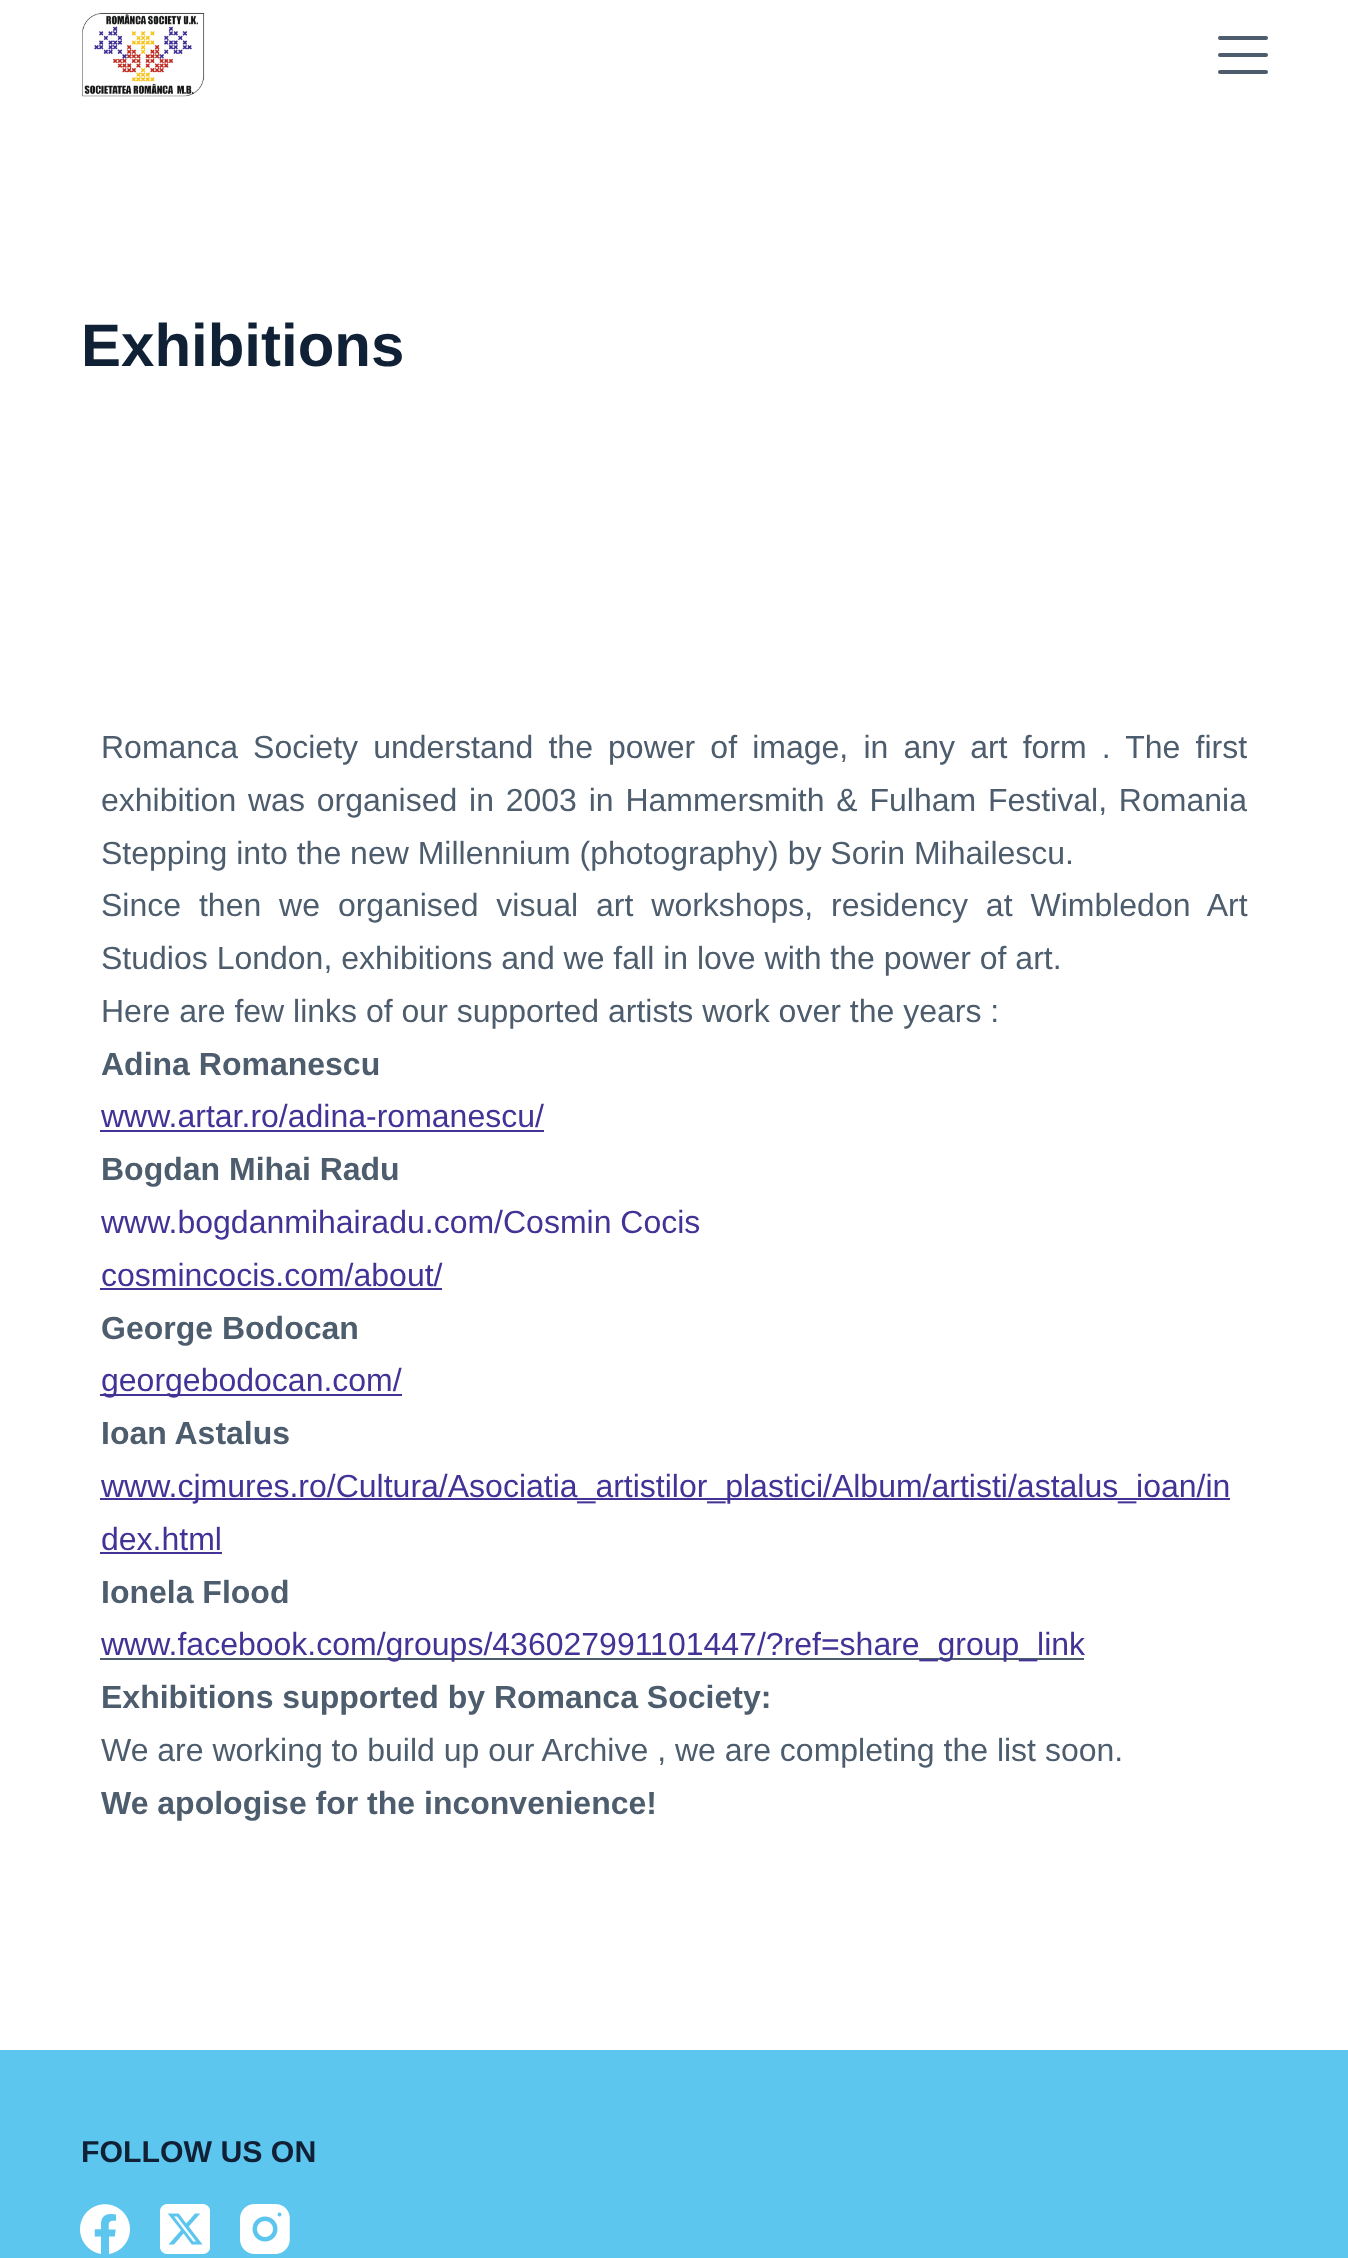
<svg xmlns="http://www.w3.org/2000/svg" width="1348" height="2258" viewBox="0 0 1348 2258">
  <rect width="100%" height="100%" fill="#ffffff"/>
  <image x="82" y="12" width="123" height="85" href="img1.png"/>
  <rect x="1218" y="36" width="50" height="4" rx="2" fill="#4d5d6d"/>
  <rect x="1218" y="53" width="50" height="4" rx="2" fill="#4d5d6d"/>
  <rect x="1218" y="70" width="50" height="4" rx="2" fill="#4d5d6d"/>
  <text x="81" y="366" font-family="Liberation Sans" font-size="60" font-weight="bold" fill="#102136">Exhibitions</text>
  <text x="101" y="758" word-spacing="6.25" font-family="Liberation Sans" font-size="32" fill="#4d5d6d">Romanca Society understand the power of image, in any art form . The first</text>
  <text x="101" y="811" word-spacing="2.9" font-family="Liberation Sans" font-size="32" fill="#4d5d6d">exhibition was organised in 2003 in Hammersmith &amp; Fulham Festival, Romania</text>
  <text x="101" y="864" font-family="Liberation Sans" font-size="32" fill="#4d5d6d">Stepping into the new Millennium (photography) by Sorin Mihailescu.</text>
  <text x="101" y="916" word-spacing="9" font-family="Liberation Sans" font-size="32" fill="#4d5d6d">Since then we organised visual art workshops, residency at Wimbledon Art</text>
  <text x="101" y="969" font-family="Liberation Sans" font-size="32" fill="#4d5d6d">Studios London, exhibitions and we fall in love with the power of art.</text>
  <text x="101" y="1022" font-family="Liberation Sans" font-size="32" fill="#4d5d6d">Here are few links of our supported artists work over the years :</text>
  <text x="101" y="1075" font-family="Liberation Sans" font-size="32" font-weight="bold" fill="#4d5d6d">Adina Romanescu</text>
  <text x="101" y="1127" font-family="Liberation Sans" font-size="32" fill="#423396">www.artar.ro/adina-romanescu/</text>
  <rect x="100" y="1130" width="444" height="2" fill="#423396"/>
  <text x="101" y="1180" font-family="Liberation Sans" font-size="32" font-weight="bold" fill="#4d5d6d">Bogdan Mihai Radu</text>
  <text x="101" y="1233" font-family="Liberation Sans" font-size="32" fill="#423396">www.bogdanmihairadu.com/Cosmin Cocis</text>
  <text x="101" y="1286" font-family="Liberation Sans" font-size="32" fill="#423396">cosmincocis.com/about/</text>
  <rect x="100" y="1288" width="342" height="2" fill="#423396"/>
  <text x="101" y="1339" font-family="Liberation Sans" font-size="32" font-weight="bold" fill="#4d5d6d">George Bodocan</text>
  <rect x="100" y="1394" width="302" height="2" fill="#423396"/>
  <text x="101" y="1391" font-family="Liberation Sans" font-size="32" fill="#423396">georgebodocan.com/</text>
  <text x="101" y="1444" font-family="Liberation Sans" font-size="32" font-weight="bold" fill="#4d5d6d">Ioan Astalus</text>
  <rect x="100" y="1498" width="1130" height="2" fill="#423396"/>
  <text x="101" y="1497" font-family="Liberation Sans" font-size="32" fill="#423396">www.cjmures.ro/Cultura/Asociatia_artistilor_plastici/Album/artisti/astalus_ioan/in</text>
  <text x="101" y="1550" font-family="Liberation Sans" font-size="32" fill="#423396">dex.html</text>
  <rect x="100" y="1552" width="122" height="2" fill="#423396"/>
  <text x="101" y="1603" font-family="Liberation Sans" font-size="32" font-weight="bold" fill="#4d5d6d">Ionela Flood</text>
  <rect x="100" y="1658" width="984" height="2" fill="#4d5d6d"/>
  <text x="101" y="1655" font-family="Liberation Sans" font-size="32" fill="#423396">www.facebook.com/groups/436027991101447/?ref=share_group_link</text>
  <text x="101" y="1708" font-family="Liberation Sans" font-size="32" font-weight="bold" fill="#4d5d6d">Exhibitions supported by Romanca Society:</text>
  <text x="101" y="1761" font-family="Liberation Sans" font-size="32" fill="#4d5d6d">We are working to build up our Archive , we are completing the list soon.</text>
  <text x="101" y="1814" font-family="Liberation Sans" font-size="32" font-weight="bold" fill="#4d5d6d">We apologise for the inconvenience!</text>
  <rect x="0" y="2050" width="1348" height="208" fill="#5dc6ef"/>
  <text x="81" y="2162" font-family="Liberation Sans" font-size="30.25" font-weight="bold" fill="#102136">FOLLOW US ON</text>
  <image x="80" y="2204" width="50" height="50" href="img2.png"/>
  <image x="160" y="2204" width="50" height="50" href="img3.png"/>
  <image x="240" y="2204" width="50" height="50" href="img4.png"/>
</svg>
